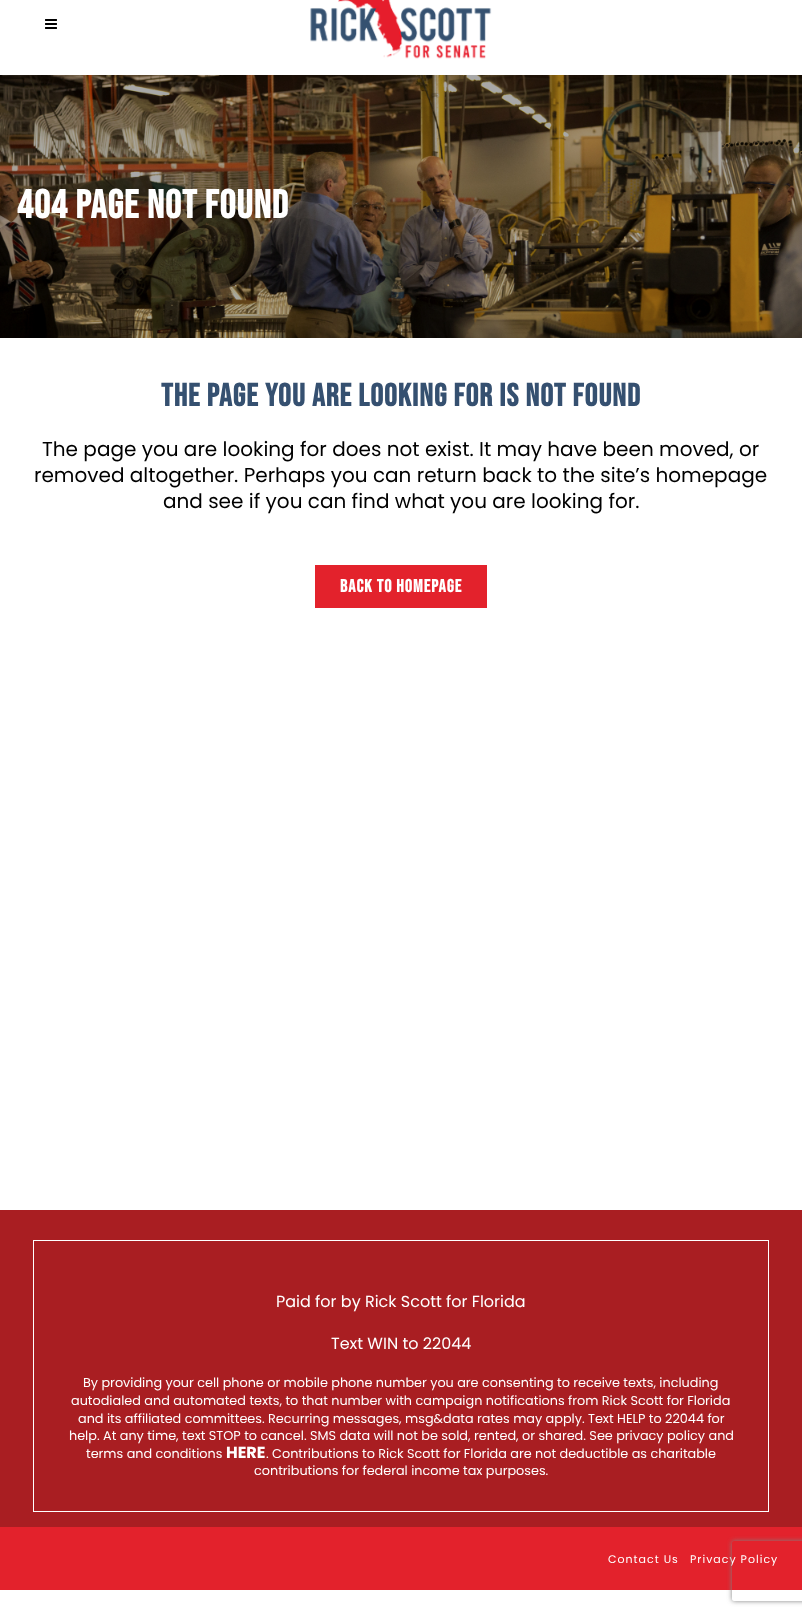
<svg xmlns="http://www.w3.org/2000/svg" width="802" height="1615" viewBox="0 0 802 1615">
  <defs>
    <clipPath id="clip1"><path d="M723 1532H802V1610H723ZM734 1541H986C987 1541 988 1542 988 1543V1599C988 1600 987 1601 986 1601H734C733 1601 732 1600 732 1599V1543C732 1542 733 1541 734 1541Z" clip-rule="evenodd"/></clipPath>
    <filter id="blur1" x="-50%" y="-200%" width="200%" height="500%"><feGaussianBlur stdDeviation="2.5"/></filter>
  </defs>
  <rect width="100%" height="100%" fill="#ffffff"/>
  <image x="45" y="19" width="12" height="10" href="img1.png"/>
  <image x="310" y="0" width="182" height="59" href="img2.png"/>
  <image x="0" y="75" width="802" height="263" href="img3.png"/>
  <text x="17" y="218" font-family="Bebas Neue" font-size="40" font-weight="bold" letter-spacing="1" fill="#ffffff">404 PAGE NOT FOUND</text>
  <text x="161" y="406" font-family="Bebas Neue" font-size="32" font-weight="bold" letter-spacing="1" fill="#355070">The Page You Are Looking For Is Not Found</text>
  <text x="42" y="456" font-family="Poppins" font-size="20" fill="#000000">The page you are looking for does not exist. It may have been moved, or</text>
  <text x="34" y="482" font-family="Poppins" font-size="20" fill="#000000">removed altogether. Perhaps you can return back to the site’s homepage</text>
  <text x="163" y="508" font-family="Poppins" font-size="20" fill="#000000">and see if you can find what you are looking for.</text>
  <rect x="315" y="565" width="172" height="43" fill="#e3222c"/>
  <text x="340" y="592" font-family="Bebas Neue" font-size="18" font-weight="bold" letter-spacing="1" fill="#ffffff">BACK TO HOMEPAGE</text>
  <rect x="0" y="1210" width="802" height="317" fill="#a91e22"/>
  <rect x="33.5" y="1240.5" width="735" height="271" fill="none" stroke="#ffffff"/>
  <text x="276" y="1307" font-family="Poppins" font-size="16" fill="#ffffff">Paid for by Rick Scott for Florida</text>
  <text x="331" y="1349" font-family="Poppins" font-size="16" fill="#ffffff">Text WIN to 22044</text>
  <text x="83" y="1387" font-family="Poppins" font-size="12.8" fill="#ffffff">By providing your cell phone or mobile phone number you are consenting to receive texts, including</text>
  <text x="71" y="1405" font-family="Poppins" font-size="12.8" fill="#ffffff">autodialed and automated texts, to that number with campaign notifications from Rick Scott for Florida</text>
  <text x="78" y="1423" font-family="Poppins" font-size="12.8" fill="#ffffff">and its affiliated committees. Recurring messages, msg&amp;data rates may apply. Text HELP to 22044 for</text>
  <text x="69" y="1440" font-family="Poppins" font-size="12.8" fill="#ffffff">help. At any time, text STOP to cancel. SMS data will not be sold, rented, or shared. See privacy policy and</text>
  <text x="86" y="1458" font-family="Poppins" font-size="12.8" fill="#ffffff">terms and conditions</text>
  <text x="226" y="1458" font-family="Poppins" font-size="16" font-weight="bold" fill="#ffffff">HERE</text>
  <text x="266" y="1458" font-family="Poppins" font-size="12.8" fill="#ffffff">. Contributions to Rick Scott for Florida are not deductible as charitable</text>
  <text x="254" y="1475" font-family="Poppins" font-size="12.8" fill="#ffffff">contributions for federal income tax purposes.</text>
  <rect x="0" y="1527" width="802" height="63" fill="#e3222c"/>
  <text x="608" y="1563" font-family="Poppins" font-size="11" letter-spacing="1" fill="#ffffff">Contact Us</text>
  <text x="690" y="1563" font-family="Poppins" font-size="11" letter-spacing="1" fill="#ffffff">Privacy Policy</text>
  <g clip-path="url(#clip1)">
    <rect x="732" y="1541" width="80" height="60" rx="2" fill="#808080" filter="url(#blur1)"/>
  </g>
</svg>
